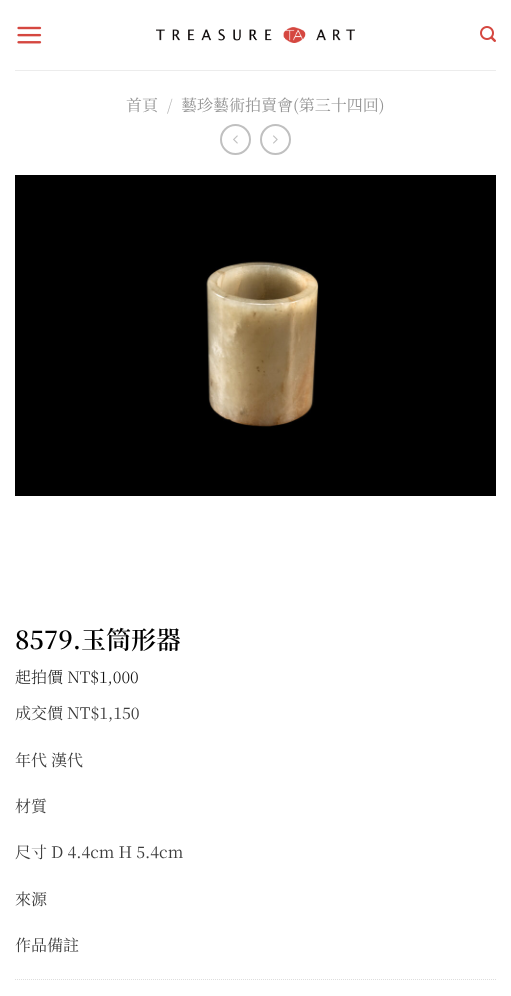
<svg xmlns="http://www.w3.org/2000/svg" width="511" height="996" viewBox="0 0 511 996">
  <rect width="100%" height="100%" fill="#ffffff"/>
  <image x="17" y="26" width="25" height="18" href="img1.png"/>
  <image x="156" y="27" width="199" height="16" href="img2.png"/>
  <image x="480" y="26" width="16" height="16" href="img3.png"/>
  <rect x="15" y="70" width="481" height="1" fill="#ececec"/>
  <text x="126" y="111" font-family="Noto Serif TC" font-size="16" fill="#949494">首頁</text>
  <text x="167" y="111" font-family="Noto Serif TC" font-size="16" font-weight="300" fill="#b2b2b2">/</text>
  <text x="181" y="111" font-family="Noto Serif TC" font-size="16" fill="#949494">藝珍藝術拍賣會(第三十四回)</text>
  <circle cx="235.5" cy="139.5" r="14.5" fill="none" stroke="#c0c0c0" stroke-width="2"/>
  <image x="233" y="135" width="5" height="9" href="img4.png"/>
  <circle cx="275.5" cy="139.5" r="14.5" fill="none" stroke="#c0c0c0" stroke-width="2"/>
  <image x="273" y="135" width="5" height="9" href="img5.png"/>
  <image x="15" y="175" width="481" height="321" href="img6.png"/>
  <text x="15" y="649" font-family="Noto Serif TC" font-size="25" font-weight="600" fill="#000000">8579.玉筒形器</text>
  <text x="15" y="683" font-family="Noto Serif TC" font-size="16" font-weight="300" fill="#111111">起拍價 NT$1,000</text>
  <text x="15" y="719" font-family="Noto Serif TC" font-size="16" fill="#3d3d3d">成交價 NT$1,150</text>
  <text x="15" y="766" font-family="Noto Serif TC" font-size="16" fill="#3d3d3d">年代 漢代</text>
  <text x="15" y="812" font-family="Noto Serif TC" font-size="16" fill="#3d3d3d">材質</text>
  <text x="15" y="858" font-family="Noto Serif TC" font-size="16" fill="#3d3d3d">尺寸</text>
  <text x="51" y="858" font-family="Noto Serif TC" font-size="16" fill="#3d3d3d">D 4.4cm H 5.4cm</text>
  <text x="15" y="905" font-family="Noto Serif TC" font-size="16" fill="#3d3d3d">來源</text>
  <text x="15" y="951" font-family="Noto Serif TC" font-size="16" fill="#3d3d3d">作品備註</text>
  <path d="M15 979.5H496" fill="none" stroke="#dddddd" stroke-dasharray="1 1"/>
</svg>
